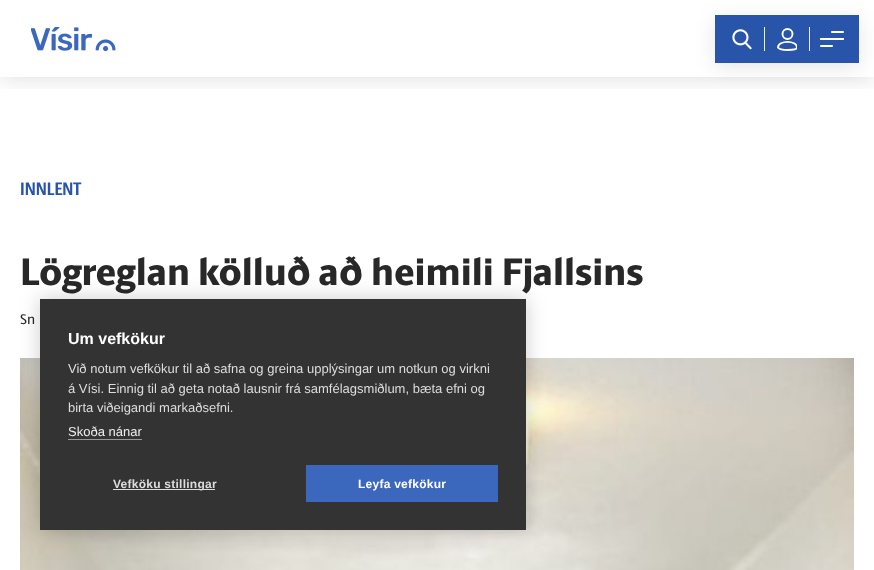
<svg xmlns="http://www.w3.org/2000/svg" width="874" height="570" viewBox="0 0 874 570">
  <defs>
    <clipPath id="clip1"><rect x="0" y="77" width="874" height="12"/></clipPath>
    <filter id="blur1" x="-50%" y="-200%" width="200%" height="500%"><feGaussianBlur stdDeviation="10"/></filter>
    <clipPath id="clip2"><rect x="777" y="27" width="20" height="25"/></clipPath>
  </defs>
  <rect width="100%" height="100%" fill="#ffffff"/>
  <g clip-path="url(#clip1)">
    <rect x="0" y="4" width="874" height="77" fill="#000000" fill-opacity="0.1" filter="url(#blur1)"/>
  </g>
  <image x="31" y="27" width="85" height="24" href="img1.png"/>
  <rect x="715" y="19" width="144" height="48" fill="#000000" fill-opacity="0.1" filter="url(#blur1)"/>
  <rect x="715" y="15" width="144" height="48" fill="#2855a9"/>
  <image x="732" y="29" width="20" height="21" href="img2.png"/>
  <rect x="764" y="27" width="1" height="24" fill="#efefef"/>
  <circle cx="787.5" cy="34" r="5" fill="none" stroke="#ffffff" stroke-width="1.9"/>
  <g clip-path="url(#clip2)">
    <path d="M797 47.5C797 50.5 780.5 51 778 47.5C778 40 797 40 797 47.5Z" fill="none" stroke="#ffffff" stroke-width="1.9"/>
  </g>
  <rect x="809" y="27" width="1" height="24" fill="#efefef"/>
  <image x="820" y="31" width="24" height="16" href="img3.png"/>
  <text x="20" y="195" font-family="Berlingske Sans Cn" font-size="18" font-weight="bold" fill="#2855a9">INNLENT</text>
  <text x="20" y="285" font-family="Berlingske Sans" font-size="38.25" font-weight="800" fill="#282828">Lögreglan kölluð að heimili Fjallsins</text>
  <text x="20" y="324" font-family="Berlingske Sans" font-size="14" font-weight="500" fill="#282828">Sn</text>
  <image x="20" y="358" width="834" height="212" href="img4.png"/>
  <rect x="40" y="299" width="486" height="231" fill="#000000" fill-opacity="0.2" filter="url(#blur1)"/>
  <rect x="40" y="299" width="486" height="231" fill="#333333"/>
  <text x="68" y="344" font-family="Liberation Sans" font-size="16" font-weight="bold" fill="#ffffff">Um vefkökur</text>
  <text x="68" y="373" font-family="Liberation Sans" font-size="13" fill="#dddddd">Við notum vefkökur til að safna og greina upplýsingar um notkun og virkni</text>
  <text x="68" y="393" font-family="Liberation Sans" font-size="13" fill="#dddddd">á Vísi. Einnig til að geta notað lausnir frá samfélagsmiðlum, bæta efni og</text>
  <text x="68" y="412" font-family="Liberation Sans" font-size="13" fill="#dddddd">birta viðeigandi markaðsefni.</text>
  <text x="68" y="436" font-family="Liberation Sans" font-size="13" fill="#eeeeee">Skoða nánar</text>
  <rect x="68" y="439" width="74" height="1" fill="#999999"/>
  <rect x="113" y="489" width="102" height="1" fill="#dddddd"/>
  <text x="113" y="488" font-family="Liberation Sans" font-size="12" font-weight="bold" letter-spacing="0.25" fill="#dddddd">Vefköku stillingar</text>
  <rect x="306" y="465" width="192" height="37" fill="#3b68bc"/>
  <text x="358" y="488" font-family="Liberation Sans" font-size="12" font-weight="bold" letter-spacing="0.25" fill="#ffffff">Leyfa vefkökur</text>
</svg>
